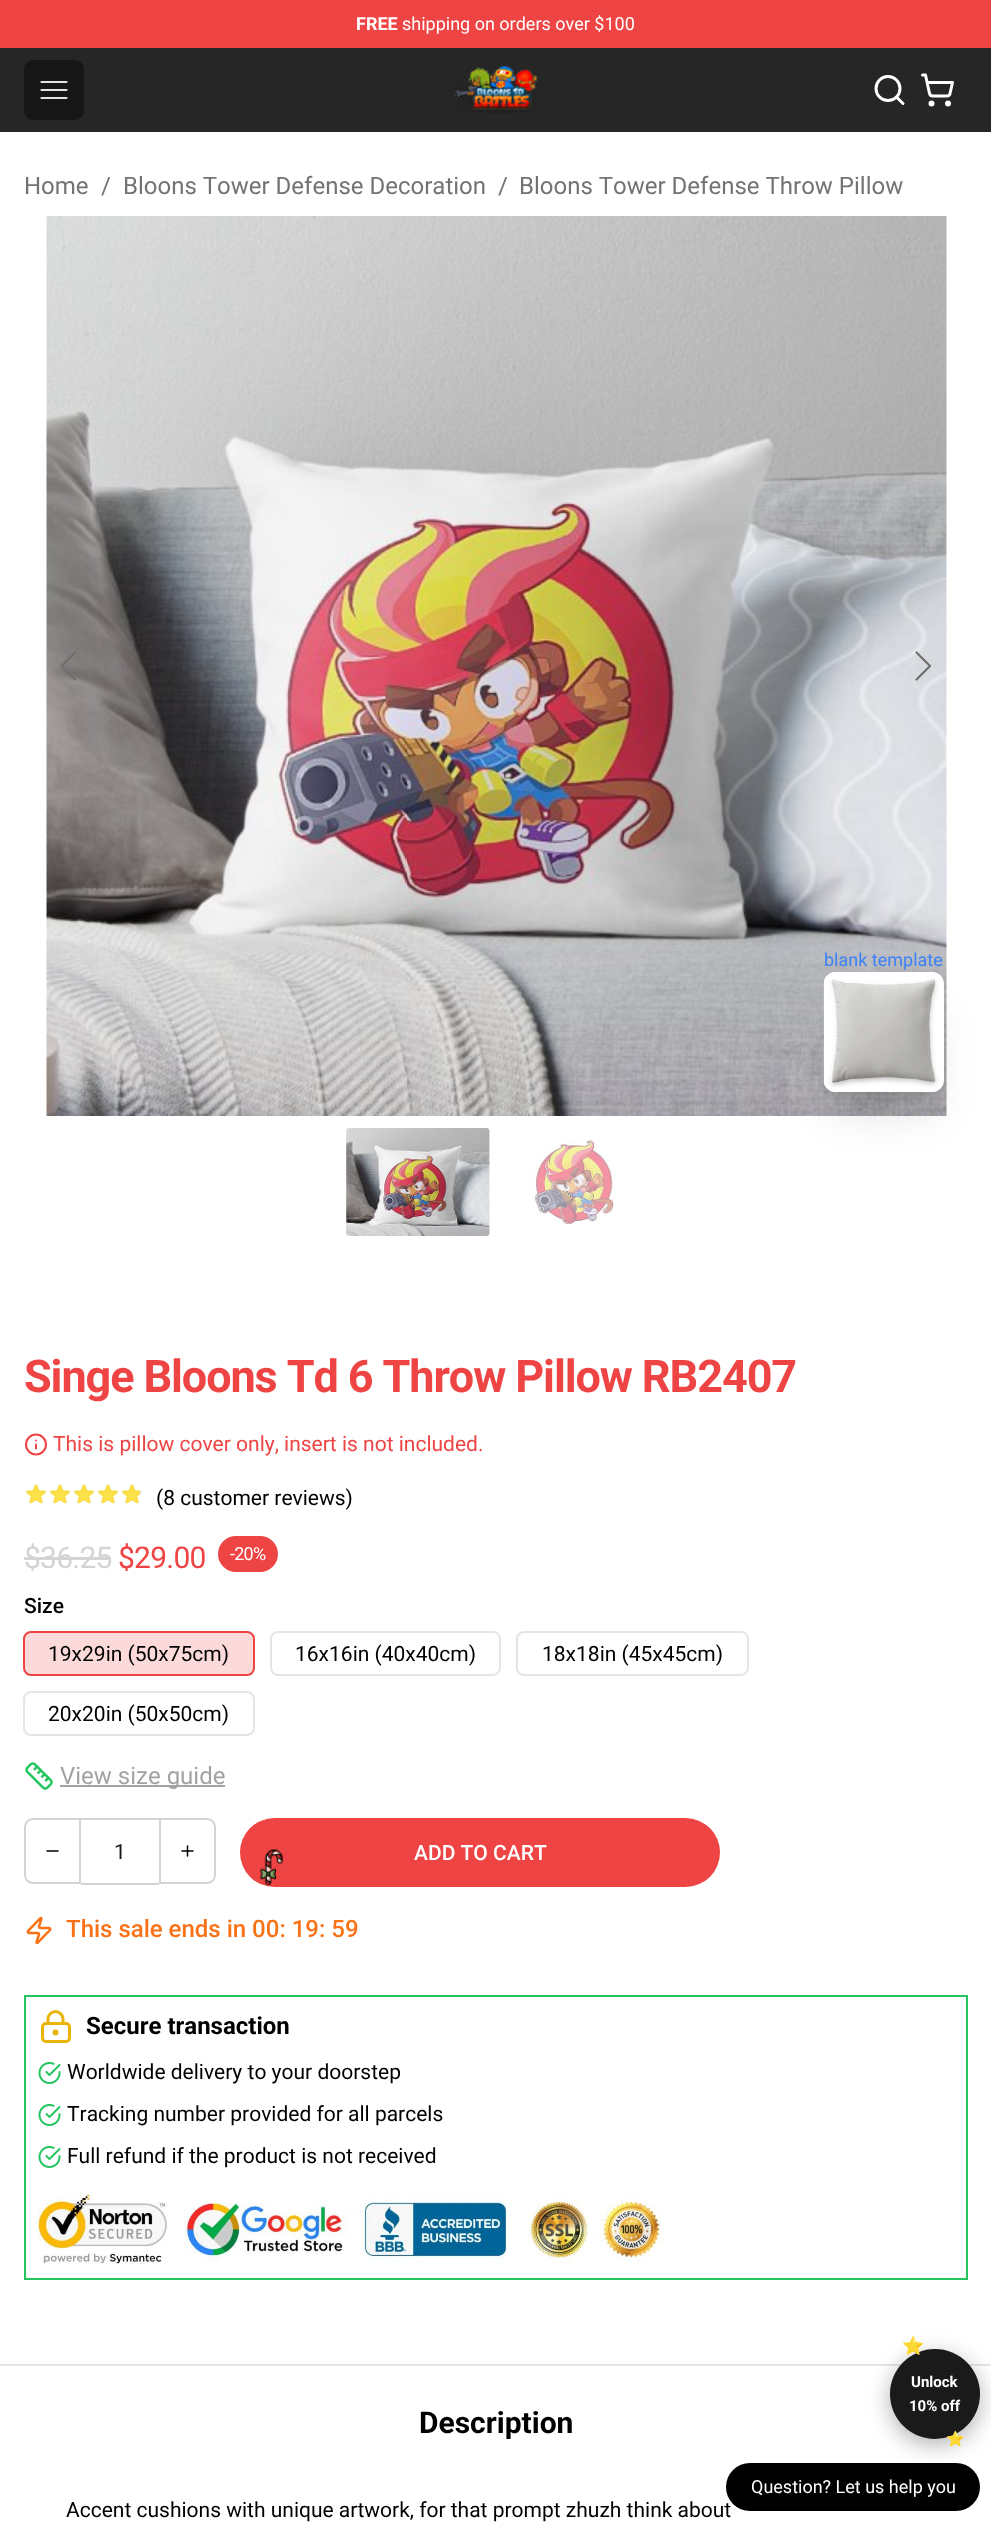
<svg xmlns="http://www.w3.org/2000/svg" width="991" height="2523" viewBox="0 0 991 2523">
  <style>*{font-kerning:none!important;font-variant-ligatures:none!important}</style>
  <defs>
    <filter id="blur1" x="-50%" y="-200%" width="200%" height="500%"><feGaussianBlur stdDeviation="7.5"/></filter>
    <filter id="blur2" x="-50%" y="-200%" width="200%" height="500%"><feGaussianBlur stdDeviation="19"/></filter>
    <filter id="blur3" x="-50%" y="-200%" width="200%" height="500%"><feGaussianBlur stdDeviation="11"/></filter>
  </defs>
  <rect width="100%" height="100%" fill="#ffffff"/>
  <rect x="0" y="0" width="991" height="48" fill="#ef4444"/>
  <text x="356" y="30" font-family="Roboto" font-size="18" font-weight="bold" fill="#ffffff">FREE</text>
  <text x="402" y="30" font-family="Roboto" font-size="18" fill="#ffffff">shipping on orders over $100</text>
  <rect x="0" y="48" width="991" height="84" fill="#262626"/>
  <rect x="24" y="60" width="60" height="60" rx="9" fill="#171717"/>
  <path d="M41.5 82H66.5M41.5 90H66.5M41.5 98H66.5" fill="none" stroke="#e5e5e5" stroke-width="2.2" stroke-linecap="round" stroke-linejoin="round"/>
  <image x="454" y="65" width="84" height="48" href="img1.png"/>
  <circle cx="931.5" cy="103.5" r="1.5" fill="none" stroke="#ffffff" stroke-width="3"/>
  <circle cx="948" cy="103.5" r="1.5" fill="none" stroke="#ffffff" stroke-width="3"/>
  <path d="M922.5 75H925.5L929.5 93.5C930 95 931 96 932.5 96H947C948.5 96 950 95 950 93.5L952.5 82.5H927M903 103.5L896.5 97" fill="none" stroke="#ffffff" stroke-width="3" stroke-linecap="round" stroke-linejoin="round"/>
  <circle cx="888" cy="88.5" r="12" fill="none" stroke="#ffffff" stroke-width="3"/>
  <text x="24" y="194" font-family="Roboto" font-size="24" fill="#737373">Home</text>
  <text x="101" y="194" font-family="Roboto" font-size="24" fill="#737373">/</text>
  <text x="123" y="194" font-family="Roboto" font-size="24" fill="#737373">Bloons Tower Defense Decoration</text>
  <text x="498" y="194" font-family="Roboto" font-size="24" fill="#737373">/</text>
  <text x="519" y="194" font-family="Roboto" font-size="24" fill="#737373">Bloons Tower Defense Throw Pillow</text>
  <image x="46" y="216" width="901" height="900" href="img2.png"/>
  <path d="M75 652.5L61.5 666L75 679.5" fill="none" stroke="#706f6c" stroke-width="2.2" stroke-linecap="round" stroke-linejoin="round"/>
  <path d="M916.5 652.5L930 666L916.5 679.5" fill="none" stroke="#706f6c" stroke-width="2.2" stroke-linecap="round" stroke-linejoin="round"/>
  <rect x="833" y="993" width="102" height="102" rx="3" fill="#000000" fill-opacity="0.1" filter="url(#blur1)"/>
  <rect x="831" y="1010" width="105" height="105" rx="5" fill="#000000" fill-opacity="0.1" filter="url(#blur2)"/>
  <rect x="824" y="972" width="120" height="120" rx="12" fill="#ffffff"/>
  <image x="823" y="972" width="120" height="120" href="img3.png"/>
  <text x="824" y="966" font-family="Roboto" font-size="18" fill="#3b82f6">blank template</text>
  <image x="346" y="1128" width="144" height="108" href="img4.png"/>
  <image x="532" y="1140" width="85" height="85" href="img5.png"/>
  <text x="24" y="1392" font-family="Roboto" font-size="45" font-weight="bold" letter-spacing="-1.1" fill="#ef4444">Singe Bloons Td 6 Throw Pillow RB2407</text>
  <circle cx="36" cy="1444.5" r="10" fill="none" stroke="#ef4444" stroke-width="2"/>
  <text x="53" y="1451" font-family="Roboto" font-size="21" fill="#ef4444">This is pillow cover only, insert is not included.</text>
  <path d="M36 1448.5V1444.5M36 1440.5H36" fill="none" stroke="#ef4444" stroke-width="2" stroke-linecap="round" stroke-linejoin="round"/>
  <image x="26" y="1484" width="20" height="20" href="img6.png"/>
  <image x="50" y="1484" width="20" height="20" href="img6.png"/>
  <image x="74" y="1484" width="20" height="20" href="img6.png"/>
  <image x="98" y="1484" width="20" height="20" href="img6.png"/>
  <image x="122" y="1484" width="20" height="20" href="img6.png"/>
  <image x="26" y="1484" width="20" height="20" href="img7.png"/>
  <image x="50" y="1484" width="20" height="20" href="img7.png"/>
  <image x="74" y="1484" width="20" height="20" href="img7.png"/>
  <image x="98" y="1484" width="20" height="20" href="img7.png"/>
  <image x="122" y="1484" width="18" height="20" href="img8.png"/>
  <text x="156" y="1505" font-family="Roboto" font-size="21" fill="#000000">(8 customer reviews)</text>
  <text x="24" y="1568" font-family="Roboto" font-size="30" letter-spacing="-0.75" fill="#d4d4d4">$36.25</text>
  <rect x="24" y="1557" width="87" height="3" fill="#d4d4d4"/>
  <text x="118" y="1568" font-family="Roboto" font-size="30" letter-spacing="-0.75" fill="#ef4444">$29.00</text>
  <rect x="218" y="1536" width="60" height="36" rx="18" fill="#ef4444"/>
  <text x="230" y="1560" font-family="Roboto" font-size="18" letter-spacing="-0.75" fill="#ffffff">-20%</text>
  <text x="24" y="1613" font-family="Roboto" font-size="21" font-weight="500" fill="#000000">Size</text>
  <rect x="24" y="1632" width="230" height="43" rx="7" fill="none" stroke="#ef4444" stroke-width="2"/>
  <rect x="24" y="1632" width="230" height="42" rx="6" fill="#ef4444" fill-opacity="0.2"/>
  <text x="48" y="1661" font-family="Roboto" font-size="21" fill="#000000">19x29in (50x75cm)</text>
  <rect x="271" y="1632" width="229" height="43" rx="7" fill="none" stroke="#e5e5e5" stroke-width="2"/>
  <text x="295" y="1661" font-family="Roboto" font-size="21" fill="#000000">16x16in (40x40cm)</text>
  <rect x="517" y="1632" width="231" height="43" rx="7" fill="none" stroke="#e5e5e5" stroke-width="2"/>
  <text x="542" y="1661" font-family="Roboto" font-size="21" fill="#000000">18x18in (45x45cm)</text>
  <rect x="24" y="1692" width="230" height="43" rx="7" fill="none" stroke="#e5e5e5" stroke-width="2"/>
  <text x="48" y="1721" font-family="Roboto" font-size="21" fill="#000000">20x20in (50x50cm)</text>
  <image x="25" y="1762" width="28" height="28" href="img9.png"/>
  <rect x="60" y="1785" width="165" height="2" fill="#a3a3a3"/>
  <text x="60" y="1784" font-family="Roboto" font-size="24" fill="#a3a3a3">View size guide</text>
  <path d="M33 1819H80V1883H33C28.5 1883 25 1879.5 25 1875V1827C25 1822.5 28.5 1819 33 1819Z" fill="none" stroke="#d4d4d4" stroke-width="2"/>
  <path d="M47 1851H58" fill="none" stroke="#000000" stroke-width="1.5" stroke-linecap="round" stroke-linejoin="round"/>
  <rect x="81" y="1818" width="78" height="2" fill="#d4d4d4"/>
  <rect x="81" y="1883" width="78" height="2" fill="#d4d4d4"/>
  <text x="114" y="1859" font-family="Roboto" font-size="21" fill="#171717">1</text>
  <path d="M160 1819H207C211.5 1819 215 1822.5 215 1827V1875C215 1879.5 211.5 1883 207 1883H160Z" fill="none" stroke="#d4d4d4" stroke-width="2"/>
  <path d="M182 1851H193M187.5 1846V1856" fill="none" stroke="#000000" stroke-width="1.5" stroke-linecap="round" stroke-linejoin="round"/>
  <rect x="240" y="1818" width="480" height="69" rx="34.5" fill="#ef4444"/>
  <image x="260" y="1849" width="23" height="37" href="img10.png"/>
  <text x="414" y="1860" font-family="Roboto" font-size="21" font-weight="500" fill="#ffffff">ADD TO CART</text>
  <image x="26" y="1916" width="26" height="29" href="img11.png"/>
  <text x="66" y="1937" font-family="Roboto" font-size="24" font-weight="500" fill="#f97316">This sale ends in 00: 19: 59</text>
  <rect x="25" y="1996" width="942" height="283" fill="none" stroke="#22c55e" stroke-width="2"/>
  <circle cx="55.5" cy="2032.5" r="1.5" fill="none" stroke="#eab308" stroke-width="3"/>
  <rect x="42.5" y="2023.5" width="27" height="18" rx="3.5" fill="none" stroke="#eab308" stroke-width="3"/>
  <path d="M48 2023.5V2019C48 2015 51.5 2011.5 55.5 2011.5C59.5 2011.5 63 2015 63 2019V2023.5" fill="none" stroke="#eab308" stroke-width="3" stroke-linecap="round" stroke-linejoin="round"/>
  <text x="86" y="2034" font-family="Roboto" font-size="24" font-weight="bold" fill="#000000">Secure transaction</text>
  <image x="38" y="2062" width="23" height="22" href="img12.png"/>
  <text x="67" y="2079" font-family="Roboto" font-size="21" fill="#000000">Worldwide delivery to your doorstep</text>
  <image x="38" y="2104" width="23" height="22" href="img12.png"/>
  <text x="67" y="2121" font-family="Roboto" font-size="21" fill="#000000">Tracking number provided for all parcels</text>
  <image x="38" y="2146" width="23" height="22" href="img12.png"/>
  <text x="67" y="2163" font-family="Roboto" font-size="21" fill="#000000">Full refund if the product is not received</text>
  <image x="37" y="2194" width="629" height="70" href="img13.png"/>
  <rect x="0" y="2364" width="991" height="2" fill="#e5e5e5"/>
  <text x="419" y="2433" font-family="Roboto" font-size="30" font-weight="bold" fill="#000000">Description</text>
  <text x="66" y="2517" font-family="Roboto" font-size="21" fill="#000000">Accent cushions with unique artwork, for that prompt zhuzh think about</text>
  <rect x="726" y="2463" width="254" height="48" rx="24" fill="#000000"/>
  <rect x="890" y="2355" width="90" height="90" rx="45" fill="#000000" fill-opacity="0.3" filter="url(#blur3)"/>
  <circle cx="935" cy="2394" r="45" fill="#1a1a1a"/>
  <text x="902" y="2352" font-family="Noto Color Emoji" font-size="18" font-weight="bold" fill="#ffd700">⭐</text>
  <text x="911" y="2387" font-family="Roboto" font-size="15" font-weight="bold" fill="#ffffff">Unlock</text>
  <text x="909" y="2411" font-family="Roboto" font-size="15" font-weight="bold" fill="#ffffff">10% off</text>
  <text x="946" y="2444" font-family="Noto Color Emoji" font-size="15" font-weight="bold" fill="#ffd700">⭐</text>
  <text x="751" y="2493" font-family="Roboto" font-size="18" fill="#ffffff">Question? Let us help you</text>
</svg>
